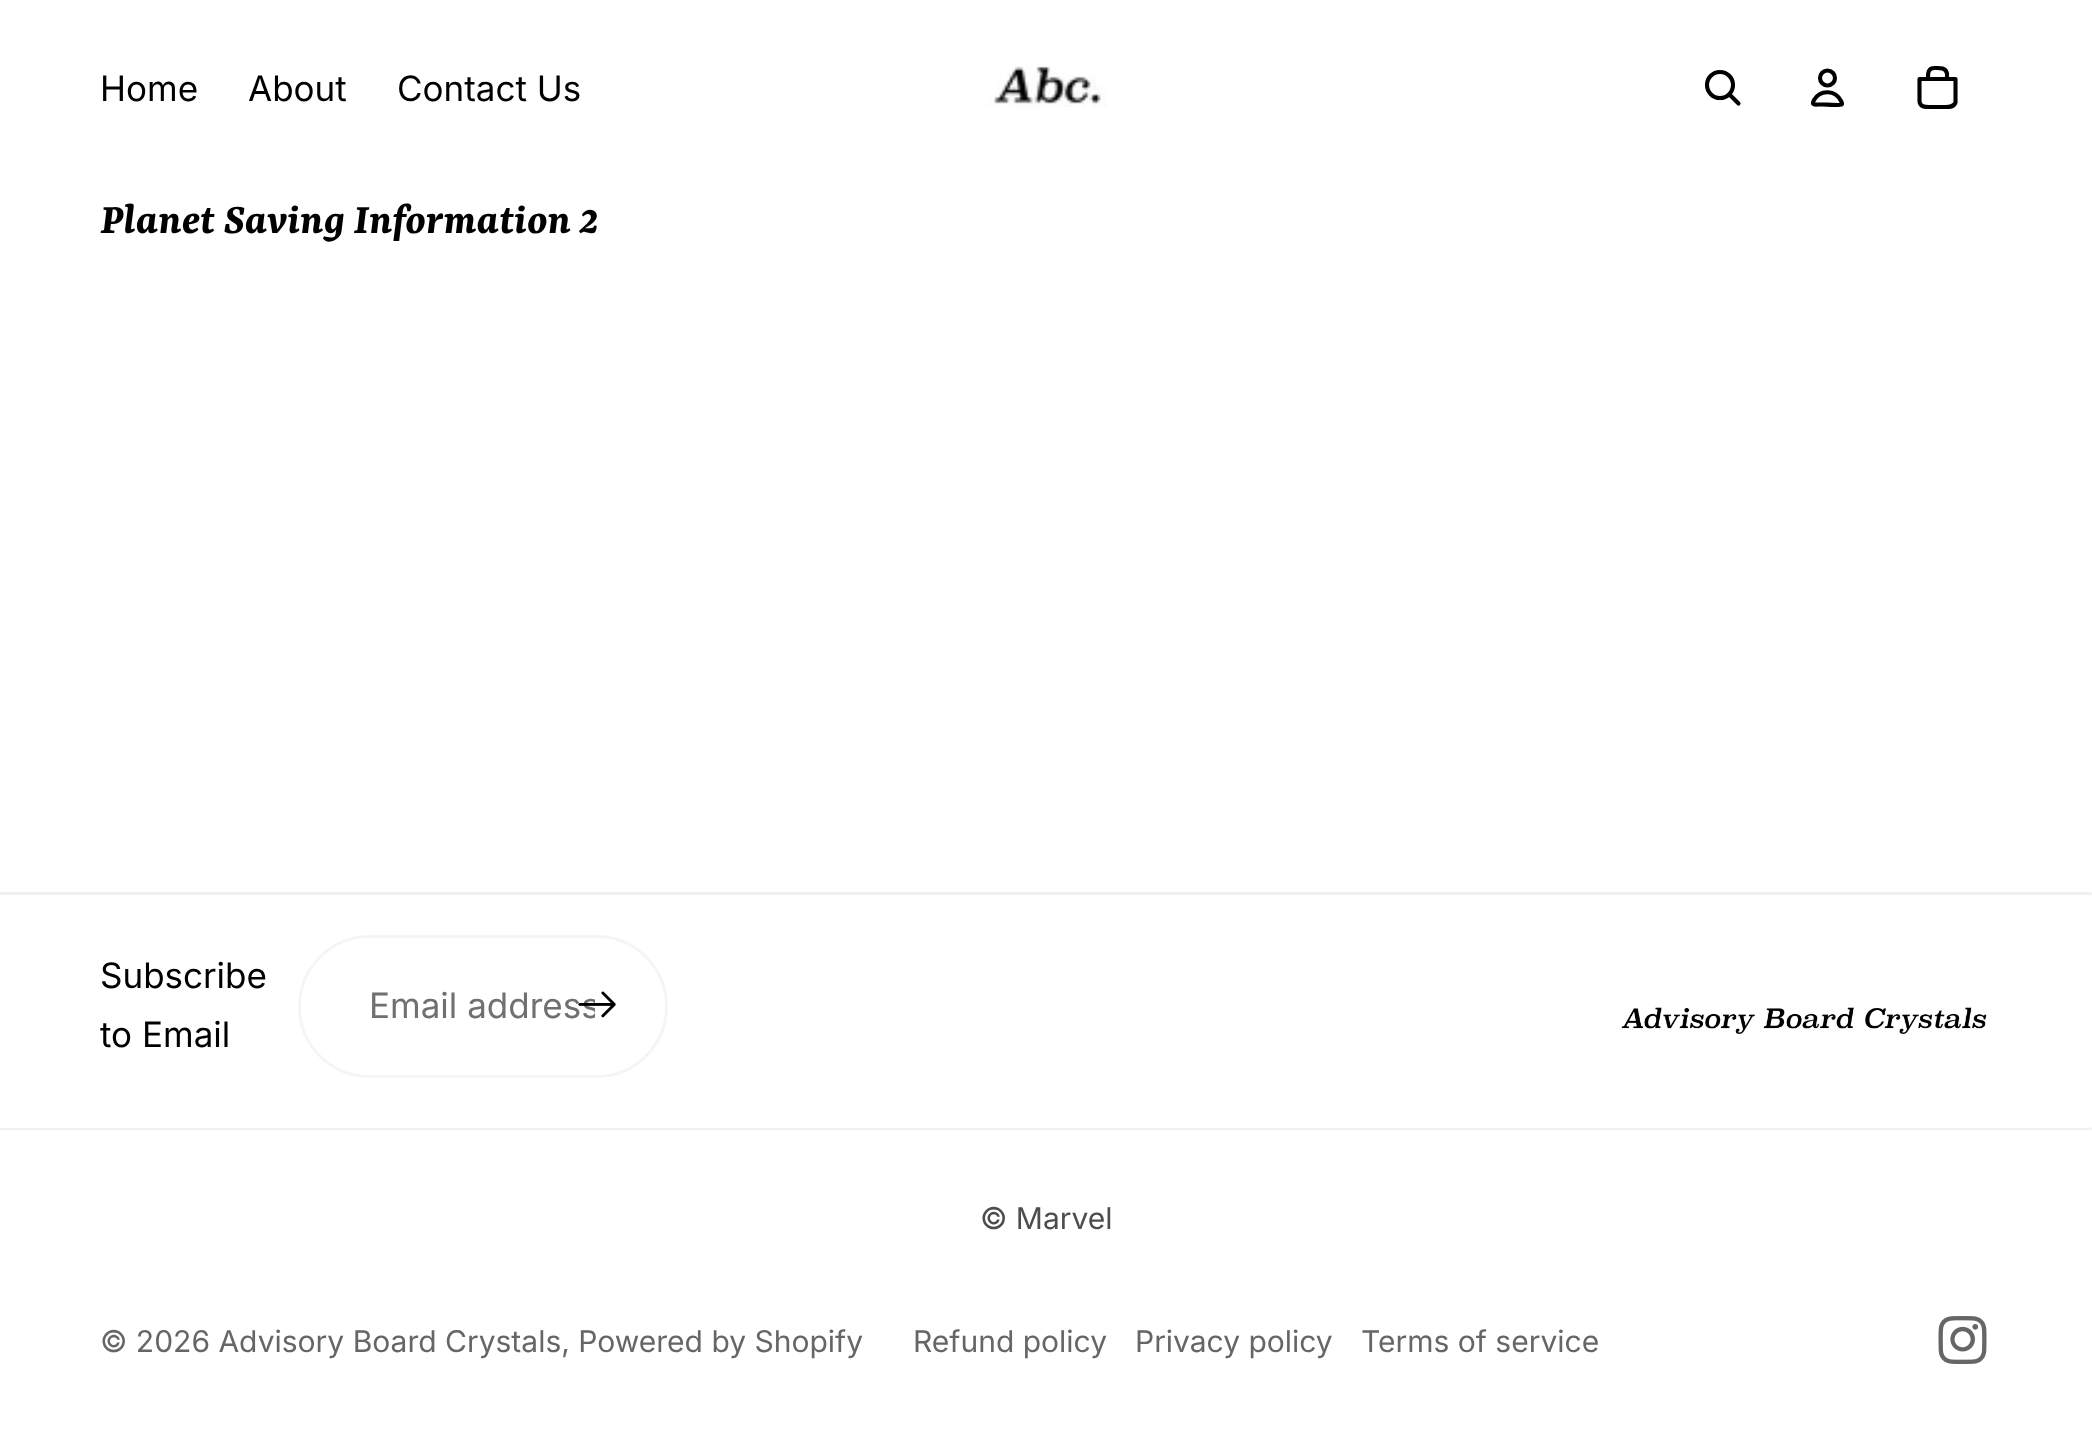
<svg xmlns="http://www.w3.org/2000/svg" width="2092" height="1453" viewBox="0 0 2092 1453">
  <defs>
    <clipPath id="clip1"><rect x="370" y="983" width="225" height="42"/></clipPath>
  </defs>
  <rect width="100%" height="100%" fill="#ffffff"/>
  <text x="100" y="101" font-family="Inter" font-size="35" fill="#000000">Home</text>
  <text x="248" y="101" font-family="Inter" font-size="35" fill="#000000">About</text>
  <text x="397" y="101" font-family="Inter" font-size="35" fill="#000000">Contact Us</text>
  <image x="988" y="66" width="119" height="41" href="img1.png"/>
  <circle cx="1720" cy="85" r="13" fill="none" stroke="#000000" stroke-width="4.1"/>
  <path d="M1729.5 94.5L1738.5 103.5" fill="none" stroke="#000000" stroke-width="4.1" stroke-linecap="round" stroke-linejoin="round"/>
  <circle cx="1827.5" cy="78" r="7.5" fill="none" stroke="#000000" stroke-width="4.1"/>
  <path d="M1814 100L1813 102.5C1812 105.5 1818 104.5 1819 104.5H1823C1825.5 104.5 1840.5 105.5 1841.5 104.5L1842 104C1842.5 103 1841.5 102 1841 101C1835.5 90 1820.5 89 1814 100" fill="none" stroke="#000000" stroke-width="4.1" stroke-linecap="round" stroke-linejoin="round"/>
  <path d="M1919.5 79H1955.5V102.5C1954 107 1949.5 107 1945.5 107H1929.5C1925 107 1919.5 107 1919.5 101ZM1934 68C1939 68 1945.5 67 1947 73.5V79H1928C1928 74 1927.5 68 1934.5 68" fill="none" stroke="#000000" stroke-width="4.1" stroke-linecap="round" stroke-linejoin="round"/>
  <text x="100" y="233" font-family="Yrsa" font-size="45" font-weight="bold" font-style="italic" fill="#000000">Planet Saving Information 2</text>
  <path d="M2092.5 892.5V895L2090 892.5Z" fill="#f0f0f0"/>
  <path d="M2092 895H0V892H2090Z" fill="#f0f0f0"/>
  <text x="100" y="988" font-family="Inter" font-size="35" fill="#000000">Subscribe</text>
  <text x="100" y="1047" font-family="Inter" font-size="35" fill="#000000">to Email</text>
  <rect x="299.5" y="936.5" width="367" height="140" rx="70" fill="none" stroke="#f5f5f5" stroke-width="3"/>
  <g clip-path="url(#clip1)">
    <text x="369" y="1018" font-family="Inter" font-size="35" fill="#707070">Email address</text>
  </g>
  <image x="578" y="991" width="38" height="27" href="img2.png"/>
  <image x="1621" y="1007" width="366" height="27" href="img3.png"/>
  <path d="M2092.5 1127.5V1130L2090 1127.5Z" fill="#f0f0f0"/>
  <path d="M2092 1130H0V1128H2090Z" fill="#f0f0f0"/>
  <text x="980" y="1229" font-family="Inter" font-size="30" fill="#4d4d4d">© Marvel</text>
  <text x="100" y="1352" font-family="Inter" font-size="30" fill="#666666">© 2026 Advisory Board Crystals, Powered by Shopify</text>
  <text x="913" y="1352" font-family="Inter" font-size="30" fill="#666666">Refund policy</text>
  <text x="1135" y="1352" font-family="Inter" font-size="30" fill="#666666">Privacy policy</text>
  <text x="1361" y="1352" font-family="Inter" font-size="30" fill="#666666">Terms of service</text>
  <image x="1938" y="1316" width="49" height="48" href="img4.png"/>
</svg>
